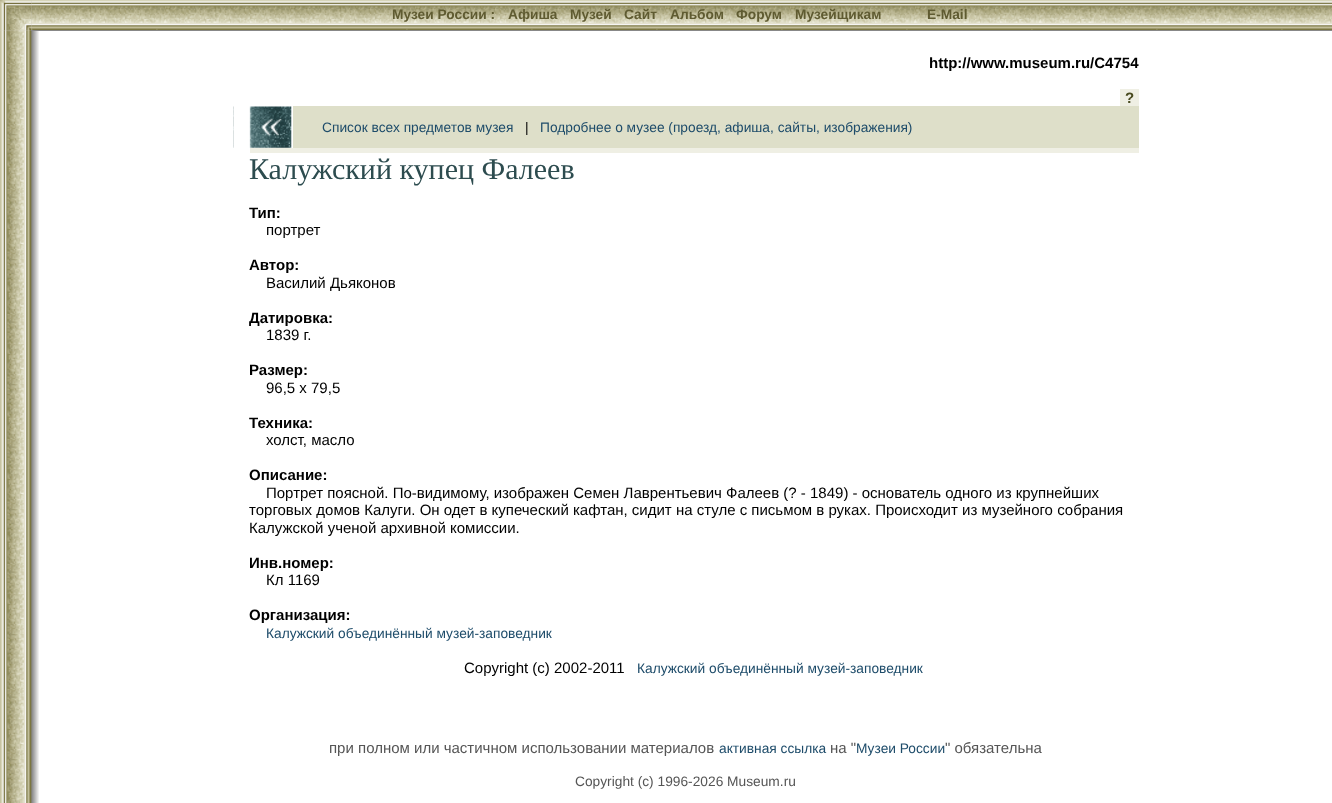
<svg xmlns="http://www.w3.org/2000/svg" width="1332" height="803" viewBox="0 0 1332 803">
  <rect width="100%" height="100%" fill="#ffffff"/>
  <image x="0" y="0" width="39" height="803" href="img1.png"/>
  <image x="0" y="0" width="32" height="31" href="img2.png"/>
  <image x="31" y="0" width="1301" height="30" href="img3.png"/>
  <text x="392" y="19" font-family="Liberation Sans" font-size="13.75" font-weight="bold" fill="#5f5b31">Музеи России :</text>
  <text x="508" y="19" font-family="Liberation Sans" font-size="13.75" font-weight="bold" fill="#5f5b31">Афиша</text>
  <text x="570" y="19" font-family="Liberation Sans" font-size="13.75" font-weight="bold" fill="#5f5b31">Музей</text>
  <text x="624" y="19" font-family="Liberation Sans" font-size="13.75" font-weight="bold" fill="#5f5b31">Сайт</text>
  <text x="670" y="19" font-family="Liberation Sans" font-size="13.75" font-weight="bold" fill="#5f5b31">Альбом</text>
  <text x="736" y="19" font-family="Liberation Sans" font-size="13.75" font-weight="bold" fill="#5f5b31">Форум</text>
  <text x="795" y="19" font-family="Liberation Sans" font-size="13.75" font-weight="bold" fill="#5f5b31">Музейщикам</text>
  <text x="927" y="19" font-family="Liberation Sans" font-size="13.75" font-weight="bold" fill="#5f5b31">E-Mail</text>
  <rect x="31" y="30" width="1301" height="1" fill="#888888"/>
  <text x="929" y="68" font-family="Liberation Sans" font-size="15" font-weight="bold" fill="#000000">http://www.museum.ru/C4754</text>
  <rect x="1120" y="89" width="19" height="17" fill="#efefe4"/>
  <text x="1125" y="103" font-family="Liberation Sans" font-size="15" font-weight="bold" fill="#494b20">?</text>
  <image x="233" y="106" width="59" height="42" href="img4.png"/>
  <rect x="293" y="106" width="846" height="42" fill="#dedfc9"/>
  <text x="322" y="132" font-family="Liberation Sans" font-size="13.75" fill="#1e4c6a">Список всех предметов музея</text>
  <text x="525" y="132" font-family="Liberation Sans" font-size="13.75" fill="#000000">|</text>
  <text x="540" y="132" font-family="Liberation Sans" font-size="13.75" fill="#1e4c6a">Подробнее о музее (проезд, афиша, сайты, изображения)</text>
  <rect x="250" y="148" width="889" height="5" fill="#efefe4"/>
  <text x="249" y="179" font-family="Liberation Serif" font-size="30" fill="#2d4c4f">Калужский купец Фалеев</text>
  <text x="249" y="218" font-family="Liberation Sans" font-size="15" font-weight="bold" fill="#000000">Тип:</text>
  <text x="266" y="235" font-family="Liberation Sans" font-size="15" fill="#000000">портрет</text>
  <text x="249" y="270" font-family="Liberation Sans" font-size="15" font-weight="bold" fill="#000000">Автор:</text>
  <text x="266" y="288" font-family="Liberation Sans" font-size="15" fill="#000000">Василий Дьяконов</text>
  <text x="249" y="323" font-family="Liberation Sans" font-size="15" font-weight="bold" fill="#000000">Датировка:</text>
  <text x="266" y="340" font-family="Liberation Sans" font-size="15" fill="#000000">1839 г.</text>
  <text x="249" y="375" font-family="Liberation Sans" font-size="15" font-weight="bold" fill="#000000">Размер:</text>
  <text x="266" y="393" font-family="Liberation Sans" font-size="15" fill="#000000">96,5 х 79,5</text>
  <text x="249" y="428" font-family="Liberation Sans" font-size="15" font-weight="bold" fill="#000000">Техника:</text>
  <text x="266" y="445" font-family="Liberation Sans" font-size="15" fill="#000000">холст, масло</text>
  <text x="249" y="480" font-family="Liberation Sans" font-size="15" font-weight="bold" fill="#000000">Описание:</text>
  <text x="266" y="498" font-family="Liberation Sans" font-size="15" fill="#000000">Портрет поясной. По-видимому, изображен Семен Лаврентьевич Фалеев (? - 1849) - основатель одного из крупнейших</text>
  <text x="249" y="515" font-family="Liberation Sans" font-size="15" fill="#000000">торговых домов Калуги. Он одет в купеческий кафтан, сидит на стуле с письмом в руках. Происходит из музейного собрания</text>
  <text x="249" y="533" font-family="Liberation Sans" font-size="15" fill="#000000">Калужской ученой архивной комиссии.</text>
  <text x="249" y="568" font-family="Liberation Sans" font-size="15" font-weight="bold" fill="#000000">Инв.номер:</text>
  <text x="266" y="585" font-family="Liberation Sans" font-size="15" fill="#000000">Кл 1169</text>
  <text x="249" y="620" font-family="Liberation Sans" font-size="15" font-weight="bold" fill="#000000">Организация:</text>
  <text x="266" y="638" font-family="Liberation Sans" font-size="13.75" fill="#1e4c6a">Калужский объединённый музей-заповедник</text>
  <text x="464" y="673" font-family="Liberation Sans" font-size="15" fill="#000000">Copyright (c) 2002-2011</text>
  <text x="637" y="673" font-family="Liberation Sans" font-size="13.75" fill="#1e4c6a">Калужский объединённый музей-заповедник</text>
  <text x="329" y="753" font-family="Liberation Sans" font-size="15" fill="#555555">при полном или частичном использовании материалов</text>
  <text x="719" y="753" font-family="Liberation Sans" font-size="13.75" fill="#1e4c6a">активная ссылка</text>
  <text x="830" y="753" font-family="Liberation Sans" font-size="15" fill="#555555">на "</text>
  <text x="856" y="753" font-family="Liberation Sans" font-size="13.75" fill="#1e4c6a">Музеи России</text>
  <text x="945" y="753" font-family="Liberation Sans" font-size="15" fill="#555555">" обязательна</text>
  <text x="575" y="786" font-family="Liberation Sans" font-size="13.75" fill="#555555">Copyright (c) 1996-2026 Museum.ru</text>
</svg>
